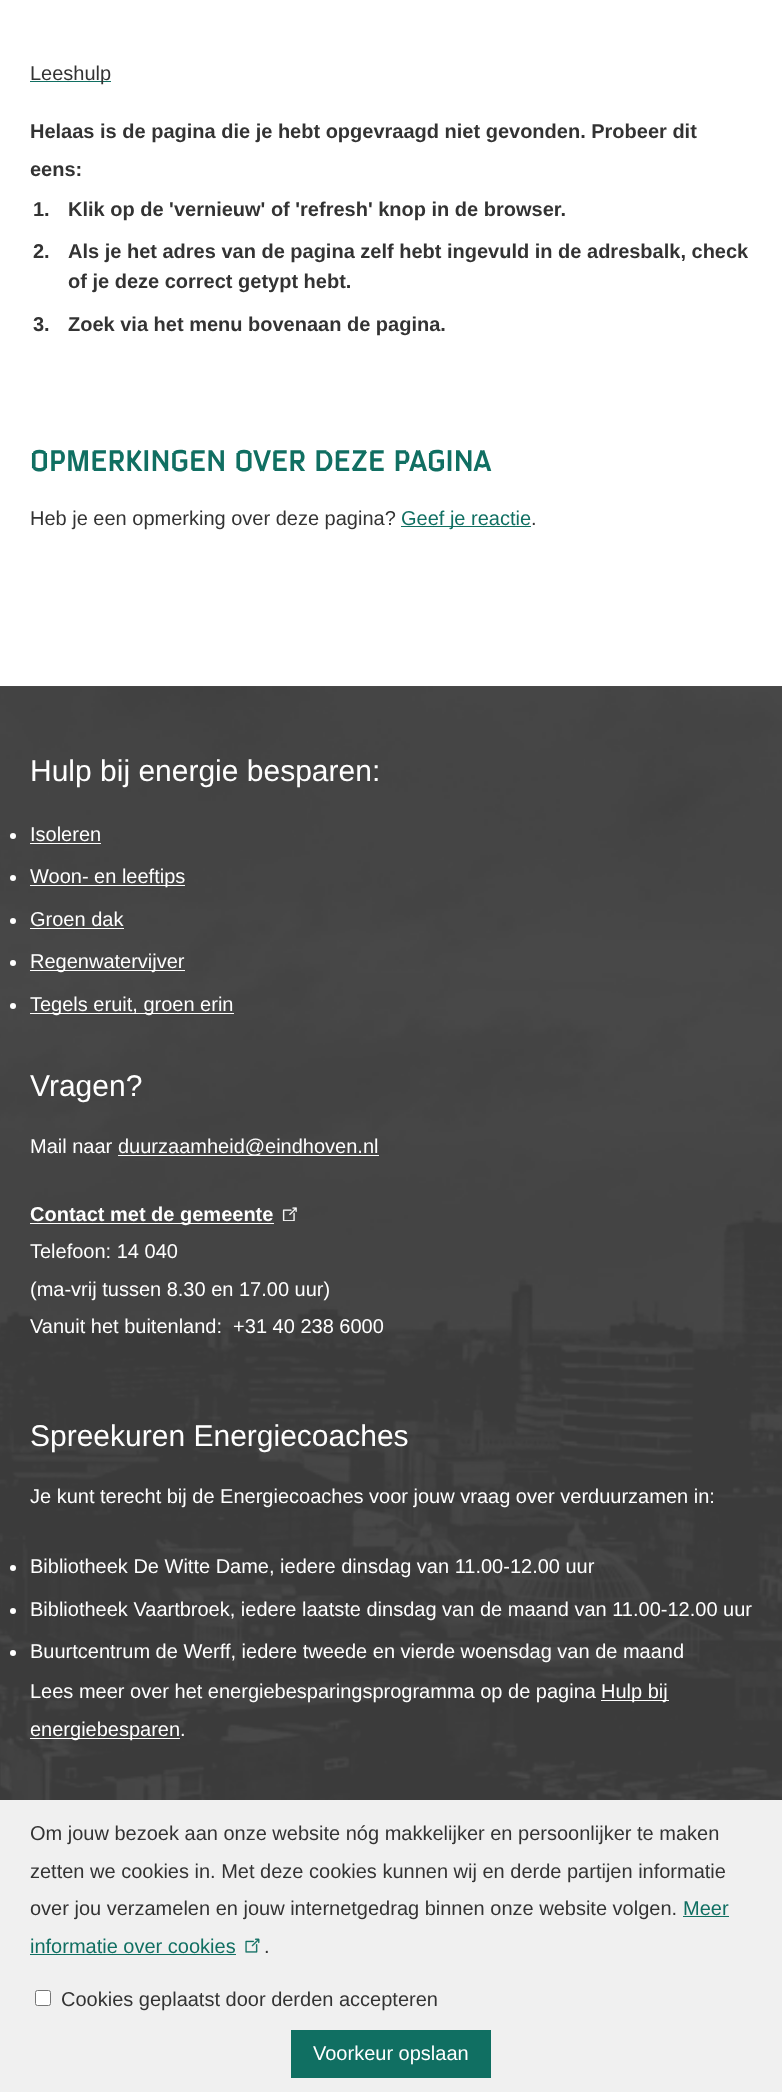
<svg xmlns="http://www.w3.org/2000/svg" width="782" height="2092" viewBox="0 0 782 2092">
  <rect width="100%" height="100%" fill="#ffffff"/>
  <rect x="30" y="81" width="81" height="1" fill="#106f62"/>
  <text x="30" y="80" font-family="Liberation Sans" font-size="20" fill="#333333">Leeshulp</text>
  <text x="30" y="138" font-family="Liberation Sans" font-size="20" font-weight="bold" fill="#333333">Helaas is de pagina die je hebt opgevraagd niet gevonden. Probeer dit</text>
  <text x="30" y="176" font-family="Liberation Sans" font-size="20" font-weight="bold" fill="#333333">eens:</text>
  <text x="33" y="216" font-family="Liberation Sans" font-size="20" font-weight="bold" fill="#333333">1.</text>
  <text x="68" y="216" font-family="Liberation Sans" font-size="20" font-weight="bold" fill="#333333">Klik op de 'vernieuw' of 'refresh' knop in de browser.</text>
  <text x="33" y="258" font-family="Liberation Sans" font-size="20" font-weight="bold" fill="#333333">2.</text>
  <text x="68" y="258" font-family="Liberation Sans" font-size="20" font-weight="bold" fill="#333333">Als je het adres van de pagina zelf hebt ingevuld in de adresbalk, check</text>
  <text x="68" y="288" font-family="Liberation Sans" font-size="20" font-weight="bold" fill="#333333">of je deze correct getypt hebt.</text>
  <text x="33" y="331" font-family="Liberation Sans" font-size="20" font-weight="bold" fill="#333333">3.</text>
  <text x="68" y="331" font-family="Liberation Sans" font-size="20" font-weight="bold" fill="#333333">Zoek via het menu bovenaan de pagina.</text>
  <text x="30" y="471" font-family="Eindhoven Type" font-size="30" fill="#106f62">Opmerkingen over deze pagina</text>
  <text x="30" y="525" font-family="Liberation Sans" font-size="20" fill="#333333">Heb je een opmerking over deze pagina?</text>
  <rect x="401" y="526" width="130" height="1" fill="#106f62"/>
  <text x="401" y="525" font-family="Liberation Sans" font-size="20" fill="#106f62">Geef je reactie</text>
  <text x="531" y="525" font-family="Liberation Sans" font-size="20" fill="#333333">.</text>
  <rect x="0" y="686" width="782" height="1114" fill="#525252"/>
  <image x="0" y="686" width="782" height="1114" href="img1.png"/>
  <text x="30" y="781" font-family="Liberation Sans" font-size="30" fill="#ffffff">Hulp bij energie besparen:</text>
  <circle cx="13" cy="836" r="3" fill="#ffffff"/>
  <text x="30" y="841" font-family="Liberation Sans" font-size="20" fill="#ffffff">Isoleren</text>
  <rect x="30" y="843" width="71" height="1" fill="#ffffff"/>
  <circle cx="13" cy="878" r="3" fill="#ffffff"/>
  <rect x="30" y="885" width="155" height="1" fill="#ffffff"/>
  <text x="30" y="883" font-family="Liberation Sans" font-size="20" fill="#ffffff">Woon- en leeftips</text>
  <circle cx="13" cy="921" r="3" fill="#ffffff"/>
  <text x="30" y="926" font-family="Liberation Sans" font-size="20" fill="#ffffff">Groen dak</text>
  <rect x="30" y="928" width="94" height="1" fill="#ffffff"/>
  <circle cx="13" cy="963" r="3" fill="#ffffff"/>
  <rect x="30" y="970" width="155" height="1" fill="#ffffff"/>
  <text x="30" y="968" font-family="Liberation Sans" font-size="20" fill="#ffffff">Regenwatervijver</text>
  <circle cx="13" cy="1006" r="3" fill="#ffffff"/>
  <rect x="30" y="1013" width="204" height="1" fill="#ffffff"/>
  <text x="30" y="1011" font-family="Liberation Sans" font-size="20" fill="#ffffff">Tegels eruit, groen erin</text>
  <text x="30" y="1096" font-family="Liberation Sans" font-size="30" fill="#ffffff">Vragen?</text>
  <text x="30" y="1153" font-family="Liberation Sans" font-size="20" fill="#ffffff">Mail naar</text>
  <rect x="118" y="1155" width="261" height="1" fill="#ffffff"/>
  <text x="118" y="1153" font-family="Liberation Sans" font-size="20" fill="#ffffff">duurzaamheid@eindhoven.nl</text>
  <rect x="30" y="1223" width="244" height="1" fill="#ffffff"/>
  <text x="30" y="1221" font-family="Liberation Sans" font-size="20" font-weight="bold" fill="#ffffff">Contact met de gemeente</text>
  <image x="282" y="1207" width="15" height="14" href="img2.png"/>
  <text x="30" y="1258" font-family="Liberation Sans" font-size="20" fill="#ffffff">Telefoon: 14 040</text>
  <text x="30" y="1296" font-family="Liberation Sans" font-size="20" fill="#ffffff">(ma-vrij tussen 8.30 en 17.00 uur)</text>
  <text x="30" y="1333" font-family="Liberation Sans" font-size="20" fill="#ffffff" xml:space="preserve">Vanuit het buitenland:  +31 40 238 6000</text>
  <text x="30" y="1446" font-family="Liberation Sans" font-size="30" fill="#ffffff">Spreekuren Energiecoaches</text>
  <text x="30" y="1503" font-family="Liberation Sans" font-size="20" fill="#ffffff">Je kunt terecht bij de Energiecoaches voor jouw vraag over verduurzamen in:</text>
  <circle cx="13" cy="1568" r="3" fill="#ffffff"/>
  <text x="30" y="1573" font-family="Liberation Sans" font-size="20" fill="#ffffff">Bibliotheek De Witte Dame, iedere dinsdag van 11.00-12.00 uur</text>
  <circle cx="13" cy="1611" r="3" fill="#ffffff"/>
  <text x="30" y="1616" font-family="Liberation Sans" font-size="20" fill="#ffffff">Bibliotheek Vaartbroek, iedere laatste dinsdag van de maand van 11.00-12.00 uur</text>
  <circle cx="13" cy="1653" r="3" fill="#ffffff"/>
  <text x="30" y="1658" font-family="Liberation Sans" font-size="20" fill="#ffffff">Buurtcentrum de Werff, iedere tweede en vierde woensdag van de maand</text>
  <text x="30" y="1698" font-family="Liberation Sans" font-size="20" fill="#ffffff">Lees meer over het energiebesparingsprogramma op de pagina</text>
  <rect x="601" y="1700" width="68" height="1" fill="#ffffff"/>
  <text x="601" y="1698" font-family="Liberation Sans" font-size="20" fill="#ffffff">Hulp bij</text>
  <rect x="30" y="1738" width="150" height="1" fill="#ffffff"/>
  <text x="30" y="1736" font-family="Liberation Sans" font-size="20" fill="#ffffff">energiebesparen.</text>
  <rect x="0" y="1800" width="782" height="292" fill="#f0f0f0"/>
  <text x="30" y="1840" font-family="Liberation Sans" font-size="20" fill="#333333">Om jouw bezoek aan onze website nóg makkelijker en persoonlijker te maken</text>
  <text x="30" y="1878" font-family="Liberation Sans" font-size="20" fill="#333333">zetten we cookies in. Met deze cookies kunnen wij en derde partijen informatie</text>
  <text x="30" y="1915" font-family="Liberation Sans" font-size="20" fill="#333333">over jou verzamelen en jouw internetgedrag binnen onze website volgen.</text>
  <text x="683" y="1915" font-family="Liberation Sans" font-size="20" fill="#106f62">Meer</text>
  <rect x="683" y="1916" width="46" height="1" fill="#106f62"/>
  <text x="30" y="1953" font-family="Liberation Sans" font-size="20" fill="#106f62">informatie over cookies</text>
  <rect x="30" y="1954" width="206" height="1" fill="#106f62"/>
  <image x="245" y="1938" width="15" height="15" href="img3.png"/>
  <text x="264" y="1953" font-family="Liberation Sans" font-size="20" fill="#333333">.</text>
  <rect x="35.5" y="1990.5" width="15" height="15" rx="2" fill="#ffffff" stroke="#767676"/>
  <text x="61" y="2006" font-family="Liberation Sans" font-size="20" fill="#333333">Cookies geplaatst door derden accepteren</text>
  <rect x="291" y="2030" width="200" height="48" fill="#106f62"/>
  <text x="313" y="2060" font-family="Liberation Sans" font-size="20" fill="#ffffff">Voorkeur opslaan</text>
</svg>
